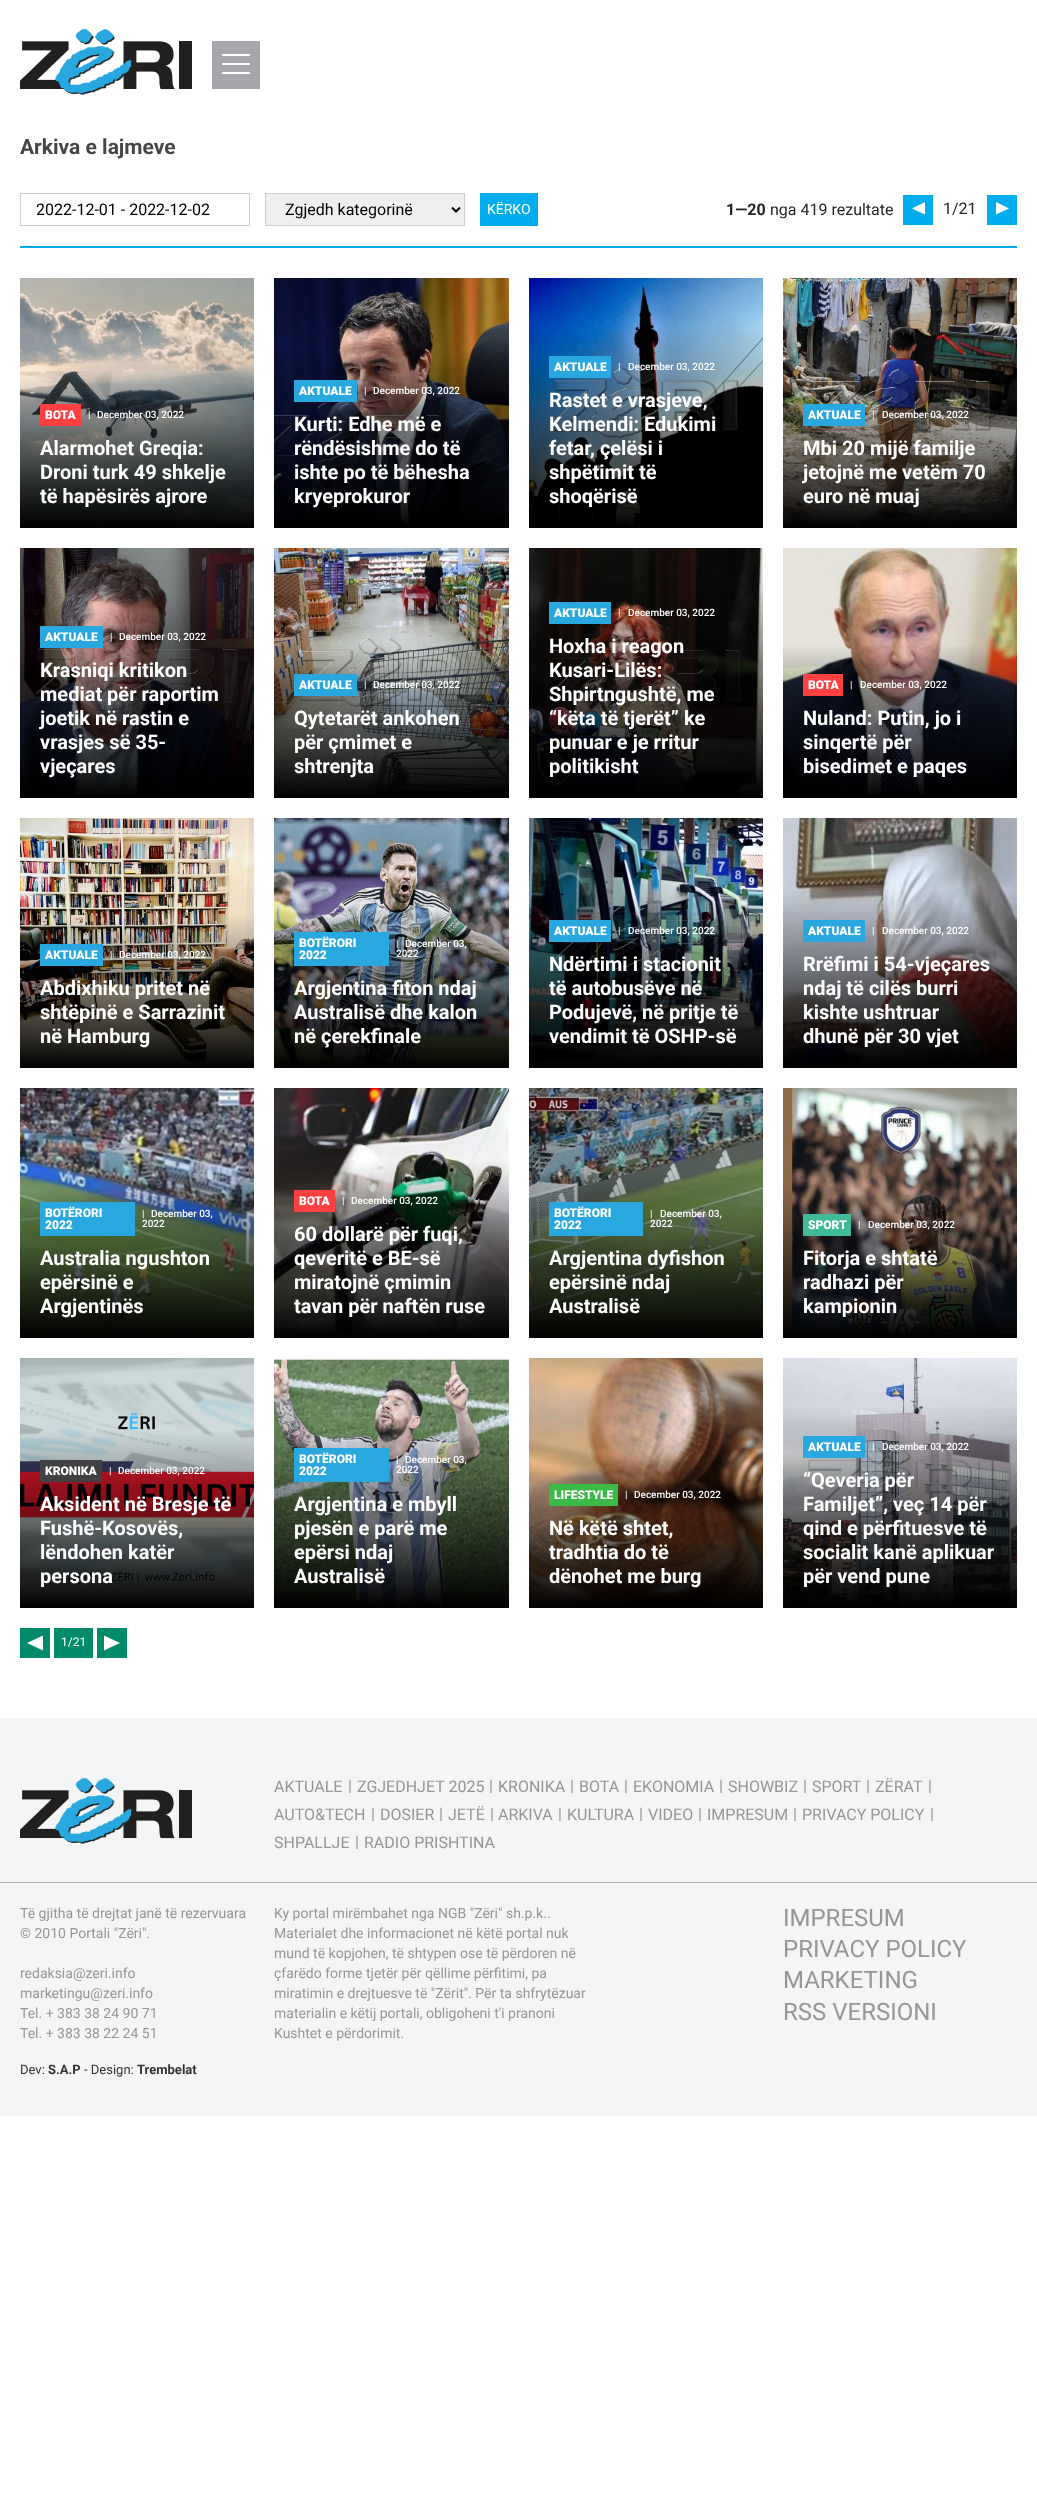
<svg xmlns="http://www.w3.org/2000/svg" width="1037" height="2494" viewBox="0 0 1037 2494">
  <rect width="100%" height="100%" fill="#ffffff"/>
  <image x="20" y="29" width="172" height="66" href="img1.png"/>
  <rect x="212" y="41" width="48" height="48" fill="#a5a7aa"/>
  <rect x="222" y="63" width="28" height="2" fill="#ffffff"/>
  <rect x="222" y="54" width="28" height="2" fill="#ffffff"/>
  <rect x="222" y="72" width="28" height="2" fill="#ffffff"/>
  <text x="20" y="154" font-family="Roboto" font-size="21" font-weight="bold" fill="#454646">Arkiva e lajmeve</text>
  <rect x="20" y="246" width="997" height="2" fill="#00aeef"/>
  <rect x="20.5" y="193.5" width="229" height="32" fill="none" stroke="#cccccc"/>
  <text x="36" y="215" font-family="Roboto" font-size="16" fill="#000000">2022-12-01 - 2022-12-02</text>
  <rect x="265.5" y="193.5" width="199" height="32" fill="#efefef" stroke="#cccccc"/>
  <path d="M452 207.5L456 211.5L460 207.5" fill="none" stroke="#000000" stroke-width="2"/>
  <text x="285" y="215" font-family="Roboto" font-size="16" fill="#000000">Zgjedh kategorinë</text>
  <rect x="480" y="193" width="58" height="33" fill="#00aeef"/>
  <text x="487" y="214" font-family="Roboto" font-size="14" fill="#ffffff">KËRKO</text>
  <text x="726" y="215" font-family="Roboto" font-size="16" font-weight="bold" fill="#212529">1—20</text>
  <text x="770" y="215" font-family="Roboto" font-size="16" fill="#212529">nga 419 rezultate</text>
  <rect x="903" y="195" width="30" height="30" fill="#00aeef"/>
  <path d="M925 214.5V202L912 208.5Z" fill="#ffffff"/>
  <text x="943" y="214" font-family="Roboto" font-size="16" fill="#212529">1/21</text>
  <rect x="987" y="195" width="30" height="30" fill="#00aeef"/>
  <path d="M996 202V214.5L1009 208.5Z" fill="#ffffff"/>
  <image x="20" y="278" width="234" height="250" href="img2.png"/>
  <rect x="40" y="404" width="41" height="22" fill="#ff4040"/>
  <text x="45" y="419" font-family="Roboto" font-size="12" font-weight="900" fill="#ffffff">BOTA</text>
  <text x="88" y="418" font-family="Roboto" font-size="10" font-weight="500" fill="#ffffff">|</text>
  <text x="97" y="418" font-family="Roboto" font-size="10" font-weight="500" fill="#ffffff">December 03, 2022</text>
  <text x="40" y="455" font-family="Roboto" font-size="20" font-weight="bold" fill="#ffffff">Alarmohet Greqia:</text>
  <text x="40" y="479" font-family="Roboto" font-size="20" font-weight="bold" fill="#ffffff">Droni turk 49 shkelje</text>
  <text x="40" y="503" font-family="Roboto" font-size="20" font-weight="bold" fill="#ffffff">të hapësirës ajrore</text>
  <image x="274" y="278" width="235" height="250" href="img3.png"/>
  <rect x="294" y="380" width="63" height="22" fill="#29a8e0"/>
  <text x="299" y="395" font-family="Roboto" font-size="12" font-weight="900" fill="#ffffff">AKTUALE</text>
  <text x="364" y="394" font-family="Roboto" font-size="10" font-weight="500" fill="#ffffff">|</text>
  <text x="373" y="394" font-family="Roboto" font-size="10" font-weight="500" fill="#ffffff">December 03, 2022</text>
  <text x="294" y="431" font-family="Roboto" font-size="20" font-weight="bold" fill="#ffffff">Kurti: Edhe më e</text>
  <text x="294" y="455" font-family="Roboto" font-size="20" font-weight="bold" fill="#ffffff">rëndësishme do të</text>
  <text x="294" y="479" font-family="Roboto" font-size="20" font-weight="bold" fill="#ffffff">ishte po të bëhesha</text>
  <text x="294" y="503" font-family="Roboto" font-size="20" font-weight="bold" fill="#ffffff">kryeprokuror</text>
  <image x="529" y="278" width="234" height="250" href="img4.png"/>
  <rect x="549" y="356" width="62" height="22" fill="#29a8e0"/>
  <text x="554" y="371" font-family="Roboto" font-size="12" font-weight="900" fill="#ffffff">AKTUALE</text>
  <text x="618" y="370" font-family="Roboto" font-size="10" font-weight="500" fill="#ffffff">|</text>
  <text x="628" y="370" font-family="Roboto" font-size="10" font-weight="500" fill="#ffffff">December 03, 2022</text>
  <text x="549" y="407" font-family="Roboto" font-size="20" font-weight="bold" fill="#ffffff">Rastet e vrasjeve,</text>
  <text x="549" y="431" font-family="Roboto" font-size="20" font-weight="bold" fill="#ffffff">Kelmendi: Edukimi</text>
  <text x="549" y="455" font-family="Roboto" font-size="20" font-weight="bold" fill="#ffffff">fetar, çelësi i</text>
  <text x="549" y="479" font-family="Roboto" font-size="20" font-weight="bold" fill="#ffffff">shpëtimit të</text>
  <text x="549" y="503" font-family="Roboto" font-size="20" font-weight="bold" fill="#ffffff">shoqërisë</text>
  <image x="783" y="278" width="234" height="250" href="img5.png"/>
  <rect x="803" y="404" width="62" height="22" fill="#29a8e0"/>
  <text x="808" y="419" font-family="Roboto" font-size="12" font-weight="900" fill="#ffffff">AKTUALE</text>
  <text x="872" y="418" font-family="Roboto" font-size="10" font-weight="500" fill="#ffffff">|</text>
  <text x="882" y="418" font-family="Roboto" font-size="10" font-weight="500" fill="#ffffff">December 03, 2022</text>
  <text x="803" y="455" font-family="Roboto" font-size="20" font-weight="bold" fill="#ffffff">Mbi 20 mijë familje</text>
  <text x="803" y="479" font-family="Roboto" font-size="20" font-weight="bold" fill="#ffffff">jetojnë me vetëm 70</text>
  <text x="803" y="503" font-family="Roboto" font-size="20" font-weight="bold" fill="#ffffff">euro në muaj</text>
  <image x="20" y="548" width="234" height="250" href="img6.png"/>
  <rect x="40" y="626" width="63" height="22" fill="#29a8e0"/>
  <text x="45" y="641" font-family="Roboto" font-size="12" font-weight="900" fill="#ffffff">AKTUALE</text>
  <text x="110" y="640" font-family="Roboto" font-size="10" font-weight="500" fill="#ffffff">|</text>
  <text x="119" y="640" font-family="Roboto" font-size="10" font-weight="500" fill="#ffffff">December 03, 2022</text>
  <text x="40" y="677" font-family="Roboto" font-size="20" font-weight="bold" fill="#ffffff">Krasniqi kritikon</text>
  <text x="40" y="701" font-family="Roboto" font-size="20" font-weight="bold" fill="#ffffff">mediat për raportim</text>
  <text x="40" y="725" font-family="Roboto" font-size="20" font-weight="bold" fill="#ffffff">joetik në rastin e</text>
  <text x="40" y="749" font-family="Roboto" font-size="20" font-weight="bold" fill="#ffffff">vrasjes së 35-</text>
  <text x="40" y="773" font-family="Roboto" font-size="20" font-weight="bold" fill="#ffffff">vjeçares</text>
  <image x="274" y="548" width="235" height="250" href="img7.png"/>
  <rect x="294" y="674" width="63" height="22" fill="#29a8e0"/>
  <text x="299" y="689" font-family="Roboto" font-size="12" font-weight="900" fill="#ffffff">AKTUALE</text>
  <text x="364" y="688" font-family="Roboto" font-size="10" font-weight="500" fill="#ffffff">|</text>
  <text x="373" y="688" font-family="Roboto" font-size="10" font-weight="500" fill="#ffffff">December 03, 2022</text>
  <text x="294" y="725" font-family="Roboto" font-size="20" font-weight="bold" fill="#ffffff">Qytetarët ankohen</text>
  <text x="294" y="749" font-family="Roboto" font-size="20" font-weight="bold" fill="#ffffff">për çmimet e</text>
  <text x="294" y="773" font-family="Roboto" font-size="20" font-weight="bold" fill="#ffffff">shtrenjta</text>
  <image x="529" y="548" width="234" height="250" href="img8.png"/>
  <rect x="549" y="602" width="62" height="22" fill="#29a8e0"/>
  <text x="554" y="617" font-family="Roboto" font-size="12" font-weight="900" fill="#ffffff">AKTUALE</text>
  <text x="618" y="616" font-family="Roboto" font-size="10" font-weight="500" fill="#ffffff">|</text>
  <text x="628" y="616" font-family="Roboto" font-size="10" font-weight="500" fill="#ffffff">December 03, 2022</text>
  <text x="549" y="653" font-family="Roboto" font-size="20" font-weight="bold" fill="#ffffff">Hoxha i reagon</text>
  <text x="549" y="677" font-family="Roboto" font-size="20" font-weight="bold" fill="#ffffff">Kusari-Lilës:</text>
  <text x="549" y="701" font-family="Roboto" font-size="20" font-weight="bold" fill="#ffffff">Shpirtngushtë, me</text>
  <text x="549" y="725" font-family="Roboto" font-size="20" font-weight="bold" fill="#ffffff">“këta të tjerët” ke</text>
  <text x="549" y="749" font-family="Roboto" font-size="20" font-weight="bold" fill="#ffffff">punuar e je rritur</text>
  <text x="549" y="773" font-family="Roboto" font-size="20" font-weight="bold" fill="#ffffff">politikisht</text>
  <image x="783" y="548" width="234" height="250" href="img9.png"/>
  <rect x="803" y="674" width="40" height="22" fill="#ff4040"/>
  <text x="808" y="689" font-family="Roboto" font-size="12" font-weight="900" fill="#ffffff">BOTA</text>
  <text x="850" y="688" font-family="Roboto" font-size="10" font-weight="500" fill="#ffffff">|</text>
  <text x="860" y="688" font-family="Roboto" font-size="10" font-weight="500" fill="#ffffff">December 03, 2022</text>
  <text x="803" y="725" font-family="Roboto" font-size="20" font-weight="bold" fill="#ffffff">Nuland: Putin, jo i</text>
  <text x="803" y="749" font-family="Roboto" font-size="20" font-weight="bold" fill="#ffffff">sinqertë për</text>
  <text x="803" y="773" font-family="Roboto" font-size="20" font-weight="bold" fill="#ffffff">bisedimet e paqes</text>
  <image x="20" y="818" width="234" height="250" href="img10.png"/>
  <rect x="40" y="944" width="63" height="22" fill="#29a8e0"/>
  <text x="45" y="959" font-family="Roboto" font-size="12" font-weight="900" fill="#ffffff">AKTUALE</text>
  <text x="110" y="958" font-family="Roboto" font-size="10" font-weight="500" fill="#ffffff">|</text>
  <text x="119" y="958" font-family="Roboto" font-size="10" font-weight="500" fill="#ffffff">December 03, 2022</text>
  <text x="40" y="995" font-family="Roboto" font-size="20" font-weight="bold" fill="#ffffff">Abdixhiku pritet në</text>
  <text x="40" y="1019" font-family="Roboto" font-size="20" font-weight="bold" fill="#ffffff">shtëpinë e Sarrazinit</text>
  <text x="40" y="1043" font-family="Roboto" font-size="20" font-weight="bold" fill="#ffffff">në Hamburg</text>
  <image x="274" y="818" width="235" height="250" href="img11.png"/>
  <rect x="294" y="932" width="95" height="34" fill="#29a8e0"/>
  <text x="299" y="947" font-family="Roboto" font-size="12" font-weight="900" fill="#ffffff">BOTËRORI</text>
  <text x="299" y="959" font-family="Roboto" font-size="12" font-weight="900" fill="#ffffff">2022</text>
  <text x="396" y="947" font-family="Roboto" font-size="10" font-weight="500" fill="#ffffff">|</text>
  <text x="405" y="947" font-family="Roboto" font-size="10" font-weight="500" fill="#ffffff">December 03,</text>
  <text x="396" y="957" font-family="Roboto" font-size="10" font-weight="500" fill="#ffffff">2022</text>
  <text x="294" y="995" font-family="Roboto" font-size="20" font-weight="bold" fill="#ffffff">Argjentina fiton ndaj</text>
  <text x="294" y="1019" font-family="Roboto" font-size="20" font-weight="bold" fill="#ffffff">Australisë dhe kalon</text>
  <text x="294" y="1043" font-family="Roboto" font-size="20" font-weight="bold" fill="#ffffff">në çerekfinale</text>
  <image x="529" y="818" width="234" height="250" href="img12.png"/>
  <rect x="549" y="920" width="62" height="22" fill="#29a8e0"/>
  <text x="554" y="935" font-family="Roboto" font-size="12" font-weight="900" fill="#ffffff">AKTUALE</text>
  <text x="618" y="934" font-family="Roboto" font-size="10" font-weight="500" fill="#ffffff">|</text>
  <text x="628" y="934" font-family="Roboto" font-size="10" font-weight="500" fill="#ffffff">December 03, 2022</text>
  <text x="549" y="971" font-family="Roboto" font-size="20" font-weight="bold" fill="#ffffff">Ndërtimi i stacionit</text>
  <text x="549" y="995" font-family="Roboto" font-size="20" font-weight="bold" fill="#ffffff">të autobusëve në</text>
  <text x="549" y="1019" font-family="Roboto" font-size="20" font-weight="bold" fill="#ffffff">Podujevë, në pritje të</text>
  <text x="549" y="1043" font-family="Roboto" font-size="20" font-weight="bold" fill="#ffffff">vendimit të OSHP-së</text>
  <image x="783" y="818" width="234" height="250" href="img13.png"/>
  <rect x="803" y="920" width="62" height="22" fill="#29a8e0"/>
  <text x="808" y="935" font-family="Roboto" font-size="12" font-weight="900" fill="#ffffff">AKTUALE</text>
  <text x="872" y="934" font-family="Roboto" font-size="10" font-weight="500" fill="#ffffff">|</text>
  <text x="882" y="934" font-family="Roboto" font-size="10" font-weight="500" fill="#ffffff">December 03, 2022</text>
  <text x="803" y="971" font-family="Roboto" font-size="20" font-weight="bold" fill="#ffffff">Rrëfimi i 54-vjeçares</text>
  <text x="803" y="995" font-family="Roboto" font-size="20" font-weight="bold" fill="#ffffff">ndaj të cilës burri</text>
  <text x="803" y="1019" font-family="Roboto" font-size="20" font-weight="bold" fill="#ffffff">kishte ushtruar</text>
  <text x="803" y="1043" font-family="Roboto" font-size="20" font-weight="bold" fill="#ffffff">dhunë për 30 vjet</text>
  <image x="20" y="1088" width="234" height="250" href="img14.png"/>
  <rect x="40" y="1202" width="95" height="34" fill="#29a8e0"/>
  <text x="45" y="1217" font-family="Roboto" font-size="12" font-weight="900" fill="#ffffff">BOTËRORI</text>
  <text x="45" y="1229" font-family="Roboto" font-size="12" font-weight="900" fill="#ffffff">2022</text>
  <text x="142" y="1217" font-family="Roboto" font-size="10" font-weight="500" fill="#ffffff">|</text>
  <text x="151" y="1217" font-family="Roboto" font-size="10" font-weight="500" fill="#ffffff">December 03,</text>
  <text x="142" y="1227" font-family="Roboto" font-size="10" font-weight="500" fill="#ffffff">2022</text>
  <text x="40" y="1265" font-family="Roboto" font-size="20" font-weight="bold" fill="#ffffff">Australia ngushton</text>
  <text x="40" y="1289" font-family="Roboto" font-size="20" font-weight="bold" fill="#ffffff">epërsinë e</text>
  <text x="40" y="1313" font-family="Roboto" font-size="20" font-weight="bold" fill="#ffffff">Argjentinës</text>
  <image x="274" y="1088" width="235" height="250" href="img15.png"/>
  <rect x="294" y="1190" width="41" height="22" fill="#ff4040"/>
  <text x="299" y="1205" font-family="Roboto" font-size="12" font-weight="900" fill="#ffffff">BOTA</text>
  <text x="342" y="1204" font-family="Roboto" font-size="10" font-weight="500" fill="#ffffff">|</text>
  <text x="351" y="1204" font-family="Roboto" font-size="10" font-weight="500" fill="#ffffff">December 03, 2022</text>
  <text x="294" y="1241" font-family="Roboto" font-size="20" font-weight="bold" fill="#ffffff">60 dollarë për fuqi,</text>
  <text x="294" y="1265" font-family="Roboto" font-size="20" font-weight="bold" fill="#ffffff">qeveritë e BE-së</text>
  <text x="294" y="1289" font-family="Roboto" font-size="20" font-weight="bold" fill="#ffffff">miratojnë çmimin</text>
  <text x="294" y="1313" font-family="Roboto" font-size="20" font-weight="bold" fill="#ffffff">tavan për naftën ruse</text>
  <image x="529" y="1088" width="234" height="250" href="img16.png"/>
  <rect x="549" y="1202" width="94" height="34" fill="#29a8e0"/>
  <text x="554" y="1217" font-family="Roboto" font-size="12" font-weight="900" fill="#ffffff">BOTËRORI</text>
  <text x="554" y="1229" font-family="Roboto" font-size="12" font-weight="900" fill="#ffffff">2022</text>
  <text x="650" y="1217" font-family="Roboto" font-size="10" font-weight="500" fill="#ffffff">|</text>
  <text x="660" y="1217" font-family="Roboto" font-size="10" font-weight="500" fill="#ffffff">December 03,</text>
  <text x="650" y="1227" font-family="Roboto" font-size="10" font-weight="500" fill="#ffffff">2022</text>
  <text x="549" y="1265" font-family="Roboto" font-size="20" font-weight="bold" fill="#ffffff">Argjentina dyfishon</text>
  <text x="549" y="1289" font-family="Roboto" font-size="20" font-weight="bold" fill="#ffffff">epërsinë ndaj</text>
  <text x="549" y="1313" font-family="Roboto" font-size="20" font-weight="bold" fill="#ffffff">Australisë</text>
  <image x="783" y="1088" width="234" height="250" href="img17.png"/>
  <rect x="803" y="1214" width="48" height="22" fill="#40ba98"/>
  <text x="808" y="1229" font-family="Roboto" font-size="12" font-weight="900" fill="#ffffff">SPORT</text>
  <text x="858" y="1228" font-family="Roboto" font-size="10" font-weight="500" fill="#ffffff">|</text>
  <text x="868" y="1228" font-family="Roboto" font-size="10" font-weight="500" fill="#ffffff">December 03, 2022</text>
  <text x="803" y="1265" font-family="Roboto" font-size="20" font-weight="bold" fill="#ffffff">Fitorja e shtatë</text>
  <text x="803" y="1289" font-family="Roboto" font-size="20" font-weight="bold" fill="#ffffff">radhazi për</text>
  <text x="803" y="1313" font-family="Roboto" font-size="20" font-weight="bold" fill="#ffffff">kampionin</text>
  <image x="20" y="1358" width="234" height="250" href="img18.png"/>
  <rect x="40" y="1460" width="62" height="22" fill="#414042"/>
  <text x="45" y="1475" font-family="Roboto" font-size="12" font-weight="900" fill="#ffffff">KRONIKA</text>
  <text x="109" y="1474" font-family="Roboto" font-size="10" font-weight="500" fill="#ffffff">|</text>
  <text x="118" y="1474" font-family="Roboto" font-size="10" font-weight="500" fill="#ffffff">December 03, 2022</text>
  <text x="40" y="1511" font-family="Roboto" font-size="20" font-weight="bold" fill="#ffffff">Aksident në Bresje të</text>
  <text x="40" y="1535" font-family="Roboto" font-size="20" font-weight="bold" fill="#ffffff">Fushë-Kosovës,</text>
  <text x="40" y="1559" font-family="Roboto" font-size="20" font-weight="bold" fill="#ffffff">lëndohen katër</text>
  <text x="40" y="1583" font-family="Roboto" font-size="20" font-weight="bold" fill="#ffffff">persona</text>
  <image x="274" y="1358" width="235" height="250" href="img19.png"/>
  <rect x="294" y="1448" width="95" height="34" fill="#29a8e0"/>
  <text x="299" y="1463" font-family="Roboto" font-size="12" font-weight="900" fill="#ffffff">BOTËRORI</text>
  <text x="299" y="1475" font-family="Roboto" font-size="12" font-weight="900" fill="#ffffff">2022</text>
  <text x="396" y="1463" font-family="Roboto" font-size="10" font-weight="500" fill="#ffffff">|</text>
  <text x="405" y="1463" font-family="Roboto" font-size="10" font-weight="500" fill="#ffffff">December 03,</text>
  <text x="396" y="1473" font-family="Roboto" font-size="10" font-weight="500" fill="#ffffff">2022</text>
  <text x="294" y="1511" font-family="Roboto" font-size="20" font-weight="bold" fill="#ffffff">Argjentina e mbyll</text>
  <text x="294" y="1535" font-family="Roboto" font-size="20" font-weight="bold" fill="#ffffff">pjesën e parë me</text>
  <text x="294" y="1559" font-family="Roboto" font-size="20" font-weight="bold" fill="#ffffff">epërsi ndaj</text>
  <text x="294" y="1583" font-family="Roboto" font-size="20" font-weight="bold" fill="#ffffff">Australisë</text>
  <image x="529" y="1358" width="234" height="250" href="img20.png"/>
  <rect x="549" y="1484" width="69" height="22" fill="#3cba47"/>
  <text x="554" y="1499" font-family="Roboto" font-size="12" font-weight="900" fill="#ffffff">LIFESTYLE</text>
  <text x="625" y="1498" font-family="Roboto" font-size="10" font-weight="500" fill="#ffffff">|</text>
  <text x="634" y="1498" font-family="Roboto" font-size="10" font-weight="500" fill="#ffffff">December 03, 2022</text>
  <text x="549" y="1535" font-family="Roboto" font-size="20" font-weight="bold" fill="#ffffff">Në këtë shtet,</text>
  <text x="549" y="1559" font-family="Roboto" font-size="20" font-weight="bold" fill="#ffffff">tradhtia do të</text>
  <text x="549" y="1583" font-family="Roboto" font-size="20" font-weight="bold" fill="#ffffff">dënohet me burg</text>
  <image x="783" y="1358" width="234" height="250" href="img21.png"/>
  <rect x="803" y="1436" width="62" height="22" fill="#29a8e0"/>
  <text x="808" y="1451" font-family="Roboto" font-size="12" font-weight="900" fill="#ffffff">AKTUALE</text>
  <text x="872" y="1450" font-family="Roboto" font-size="10" font-weight="500" fill="#ffffff">|</text>
  <text x="882" y="1450" font-family="Roboto" font-size="10" font-weight="500" fill="#ffffff">December 03, 2022</text>
  <text x="803" y="1487" font-family="Roboto" font-size="20" font-weight="bold" fill="#ffffff">“Qeveria për</text>
  <text x="803" y="1511" font-family="Roboto" font-size="20" font-weight="bold" fill="#ffffff">Familjet”, veç 14 për</text>
  <text x="803" y="1535" font-family="Roboto" font-size="20" font-weight="bold" fill="#ffffff">qind e përfituesve të</text>
  <text x="803" y="1559" font-family="Roboto" font-size="20" font-weight="bold" fill="#ffffff">socialit kanë aplikuar</text>
  <text x="803" y="1583" font-family="Roboto" font-size="20" font-weight="bold" fill="#ffffff">për vend pune</text>
  <rect x="20" y="1628" width="30" height="30" fill="#008c6b"/>
  <path d="M43 1650.5V1635.5L27 1643Z" fill="#ffffff"/>
  <rect x="54" y="1628" width="39" height="30" fill="#008c6b"/>
  <text x="61" y="1646" font-family="Roboto" font-size="12" fill="#ffffff">1/21</text>
  <rect x="97" y="1628" width="30" height="30" fill="#008c6b"/>
  <path d="M104 1635.5V1650.5L120 1643Z" fill="#ffffff"/>
  <rect x="0" y="1718" width="1037" height="398" fill="#f4f5f6"/>
  <rect x="0" y="1882" width="1037" height="1" fill="#b2b1b2"/>
  <image x="20" y="1778" width="172" height="66" href="img22.png"/>
  <text x="274" y="1792" font-family="Roboto" font-size="16" fill="#969696">AKTUALE</text>
  <text x="348" y="1791" font-family="Roboto" font-size="16" fill="#969696">|</text>
  <text x="357" y="1792" font-family="Roboto" font-size="16" fill="#969696">ZGJEDHJET 2025</text>
  <text x="489" y="1791" font-family="Roboto" font-size="16" fill="#969696">|</text>
  <text x="498" y="1792" font-family="Roboto" font-size="16" fill="#969696">KRONIKA</text>
  <text x="570" y="1791" font-family="Roboto" font-size="16" fill="#969696">|</text>
  <text x="579" y="1792" font-family="Roboto" font-size="16" fill="#969696">BOTA</text>
  <text x="624" y="1791" font-family="Roboto" font-size="16" fill="#969696">|</text>
  <text x="633" y="1792" font-family="Roboto" font-size="16" fill="#969696">EKONOMIA</text>
  <text x="719" y="1791" font-family="Roboto" font-size="16" fill="#969696">|</text>
  <text x="728" y="1792" font-family="Roboto" font-size="16" fill="#969696">SHOWBIZ</text>
  <text x="803" y="1791" font-family="Roboto" font-size="16" fill="#969696">|</text>
  <text x="812" y="1792" font-family="Roboto" font-size="16" fill="#969696">SPORT</text>
  <text x="866" y="1791" font-family="Roboto" font-size="16" fill="#969696">|</text>
  <text x="875" y="1792" font-family="Roboto" font-size="16" fill="#969696">ZËRAT</text>
  <text x="928" y="1791" font-family="Roboto" font-size="16" fill="#969696">|</text>
  <text x="274" y="1820" font-family="Roboto" font-size="16" fill="#969696">AUTO&amp;TECH</text>
  <text x="371" y="1819" font-family="Roboto" font-size="16" fill="#969696">|</text>
  <text x="380" y="1820" font-family="Roboto" font-size="16" fill="#969696">DOSIER</text>
  <text x="439" y="1819" font-family="Roboto" font-size="16" fill="#969696">|</text>
  <text x="448" y="1820" font-family="Roboto" font-size="16" fill="#969696">JETË</text>
  <text x="490" y="1819" font-family="Roboto" font-size="16" fill="#969696">|</text>
  <text x="498" y="1820" font-family="Roboto" font-size="16" fill="#969696">ARKIVA</text>
  <text x="558" y="1819" font-family="Roboto" font-size="16" fill="#969696">|</text>
  <text x="567" y="1820" font-family="Roboto" font-size="16" fill="#969696">KULTURA</text>
  <text x="639" y="1819" font-family="Roboto" font-size="16" fill="#969696">|</text>
  <text x="648" y="1820" font-family="Roboto" font-size="16" fill="#969696">VIDEO</text>
  <text x="698" y="1819" font-family="Roboto" font-size="16" fill="#969696">|</text>
  <text x="707" y="1820" font-family="Roboto" font-size="16" fill="#969696">IMPRESUM</text>
  <text x="793" y="1819" font-family="Roboto" font-size="16" fill="#969696">|</text>
  <text x="802" y="1820" font-family="Roboto" font-size="16" fill="#969696">PRIVACY POLICY</text>
  <text x="930" y="1819" font-family="Roboto" font-size="16" fill="#969696">|</text>
  <text x="274" y="1848" font-family="Roboto" font-size="16" fill="#969696">SHPALLJE</text>
  <text x="355" y="1847" font-family="Roboto" font-size="16" fill="#969696">|</text>
  <text x="364" y="1848" font-family="Roboto" font-size="16" fill="#969696">RADIO PRISHTINA</text>
  <text x="20" y="1918" font-family="Roboto" font-size="14" fill="#969696">Të gjitha të drejtat janë të rezervuara</text>
  <text x="20" y="1938" font-family="Roboto" font-size="14" fill="#969696">© 2010 Portali "Zëri".</text>
  <text x="20" y="1978" font-family="Roboto" font-size="14" fill="#969696">redaksia@zeri.info</text>
  <text x="20" y="1998" font-family="Roboto" font-size="14" fill="#969696">marketingu@zeri.info</text>
  <text x="20" y="2018" font-family="Roboto" font-size="14" fill="#969696">Tel. + 383 38 24 90 71</text>
  <text x="20" y="2038" font-family="Roboto" font-size="14" fill="#969696">Tel. + 383 38 22 24 51</text>
  <text x="274" y="1918" font-family="Roboto" font-size="14" fill="#969696">Ky portal mirëmbahet nga NGB "Zëri" sh.p.k..</text>
  <text x="274" y="1938" font-family="Roboto" font-size="14" fill="#969696">Materialet dhe informacionet në këtë portal nuk</text>
  <text x="274" y="1958" font-family="Roboto" font-size="14" fill="#969696">mund të kopjohen, të shtypen ose të përdoren në</text>
  <text x="274" y="1978" font-family="Roboto" font-size="14" fill="#969696">çfarëdo forme tjetër për qëllime përfitimi, pa</text>
  <text x="274" y="1998" font-family="Roboto" font-size="14" fill="#969696">miratimin e drejtuesve të "Zërit". Për ta shfrytëzuar</text>
  <text x="274" y="2018" font-family="Roboto" font-size="14" fill="#969696">materialin e këtij portali, obligoheni t'i pranoni</text>
  <text x="274" y="2038" font-family="Roboto" font-size="14" fill="#969696">Kushtet e përdorimit.</text>
  <text x="783" y="1926" font-family="Roboto" font-size="24" fill="#969696">IMPRESUM</text>
  <text x="783" y="1957" font-family="Roboto" font-size="24" fill="#969696">PRIVACY POLICY</text>
  <text x="783" y="1988" font-family="Roboto" font-size="24" fill="#969696">MARKETING</text>
  <text x="783" y="2020" font-family="Roboto" font-size="24" fill="#969696">RSS VERSIONI</text>
  <text x="20" y="2074" font-family="Roboto" font-size="13" fill="#333333">Dev:</text>
  <text x="48" y="2074" font-family="Roboto" font-size="13" font-weight="bold" fill="#333333">S.A.P</text>
  <text x="84" y="2074" font-family="Roboto" font-size="13" fill="#333333">- Design:</text>
  <text x="137" y="2074" font-family="Roboto" font-size="13" font-weight="bold" fill="#333333">Trembelat</text>
</svg>
